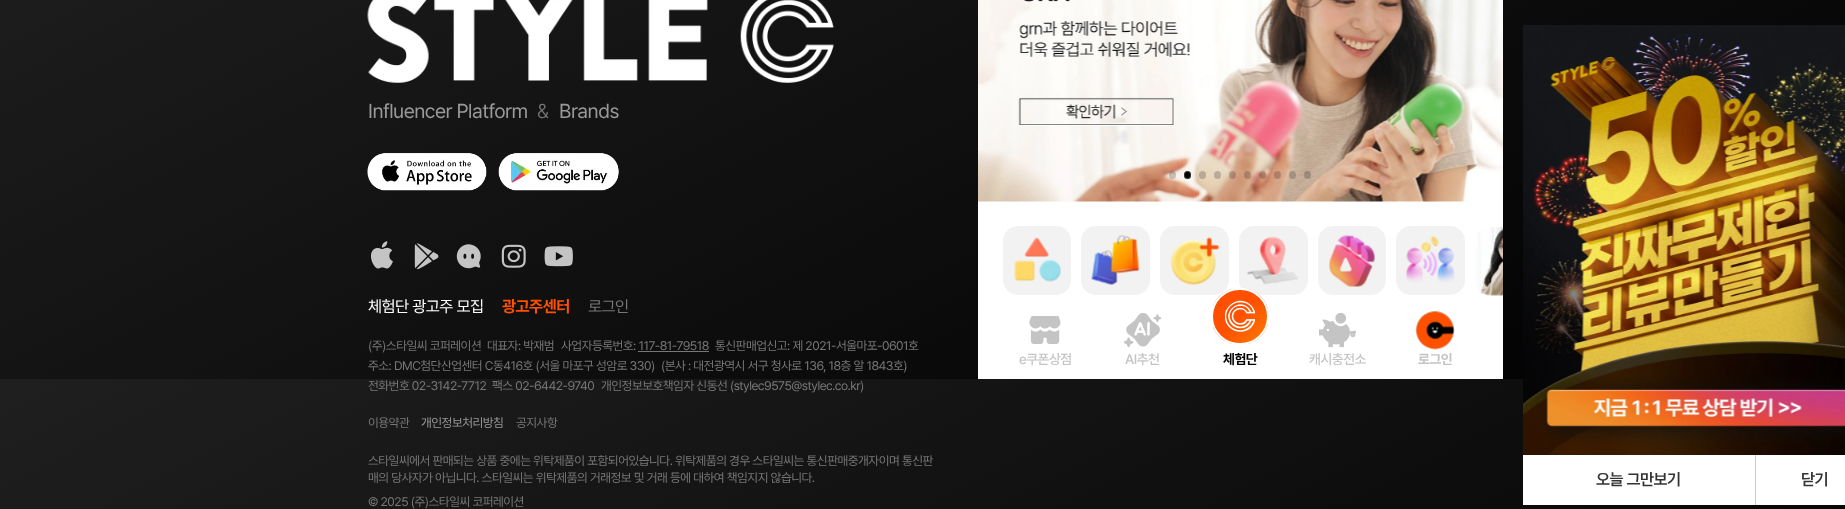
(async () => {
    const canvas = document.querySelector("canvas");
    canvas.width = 1845;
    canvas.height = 509;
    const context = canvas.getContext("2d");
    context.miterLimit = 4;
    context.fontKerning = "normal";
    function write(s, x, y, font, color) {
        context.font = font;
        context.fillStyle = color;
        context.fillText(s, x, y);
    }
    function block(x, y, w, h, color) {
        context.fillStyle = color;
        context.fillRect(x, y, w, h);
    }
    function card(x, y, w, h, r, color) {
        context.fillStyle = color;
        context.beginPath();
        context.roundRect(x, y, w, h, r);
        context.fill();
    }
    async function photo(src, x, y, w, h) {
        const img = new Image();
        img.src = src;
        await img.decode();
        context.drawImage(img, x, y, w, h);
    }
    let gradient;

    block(0, 0, 1845, 509, "rgb(255, 255, 255)");
    gradient = context.createLinearGradient(1216, 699, 629, -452);
    gradient.addColorStop(0, "rgb(0, 0, 0)");
    gradient.addColorStop(1, "rgb(31, 31, 31)");
    context.fillStyle = gradient;
    context.fillRect(0, 0, 1845, 379);
    gradient = context.createLinearGradient(1216, 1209, 629, 58);
    gradient.addColorStop(0, "rgb(0, 0, 0)");
    gradient.addColorStop(1, "rgb(31, 31, 31)");
    context.fillStyle = gradient;
    context.fillRect(0, 379, 1845, 130);
    await photo("media/1.png", 367, 0, 467, 83);
    context.letterSpacing = "-0.5px";
    write("Influencer Platform", 368, 118, "20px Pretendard", "rgb(153, 153, 153)");
    write("&", 537, 118, "300 20px Pretendard", "rgb(119, 119, 119)");
    write("Brands", 559, 118, "20px Pretendard", "rgb(153, 153, 153)");
    await photo("media/2.png", 367, 153, 120, 38);
    await photo("media/3.png", 498, 153, 121, 38);
    await photo("media/4.png", 370, 241, 23, 28);
    await photo("media/5.png", 414, 243, 25, 27);
    await photo("media/6.png", 456, 244, 25, 25);
    await photo("media/7.png", 501, 244, 25, 24);
    await photo("media/8.png", 544, 246, 29, 21);
    write("체험단 광고주 모집", 368, 312, "16.25px Pretendard", "rgb(255, 255, 255)");
    write("광고주센터", 502, 312, "bold 16.25px Pretendard", "rgb(254, 80, 0)");
    write("로그인", 588, 312, "16.25px Pretendard", "rgb(119, 119, 119)");
    write("(주)스타일씨 코퍼레이션", 368, 350, "12.5px Pretendard", "rgb(119, 119, 119)");
    write("대표자: 박재범", 487, 350, "12.5px Pretendard", "rgb(119, 119, 119)");
    write("사업자등록번호: 117-81-79518", 561, 350, "12.5px Pretendard", "rgb(119, 119, 119)");
    block(638, 351, 71, 1, "rgb(119, 119, 119)");
    write("통신판매업신고: 제 2021-서울마포-0601호", 715, 350, "12.5px Pretendard", "rgb(119, 119, 119)");
    write("주소: DMC첨단산업센터 C동416호 (서울 마포구 성암로 330)", 368, 370, "12.5px Pretendard", "rgb(119, 119, 119)");
    write("(본사 : 대전광역시 서구 청사로 136, 18층 알 1843호)", 661, 370, "12.5px Pretendard", "rgb(119, 119, 119)");
    write("전화번호 02-3142-7712", 368, 390, "12.5px Pretendard", "rgb(119, 119, 119)");
    write("팩스 02-6442-9740", 492, 390, "12.5px Pretendard", "rgb(119, 119, 119)");
    write("개인정보보호책임자 신동선 (stylec9575@stylec.co.kr)", 601, 390, "12.5px Pretendard", "rgb(119, 119, 119)");
    write("이용약관", 368, 427, "12.5px Pretendard", "rgb(119, 119, 119)");
    write("개인정보처리방침", 421, 427, "12.5px Pretendard", "rgb(153, 153, 153)");
    write("공지사항", 516, 427, "12.5px Pretendard", "rgb(119, 119, 119)");
    write("스타일씨에서 판매되는 상품 중에는 위탁제품이 포함되어있습니다. 위탁제품의 경우 스타일씨는 통신판매중개자이며 통신판", 368, 465, "12.5px Pretendard", "rgb(119, 119, 119)");
    write("매의 당사자가 아닙니다. 스타일씨는 위탁제품의 거래정보 및 거래 등에 대하여 책임지지 않습니다.", 368, 482, "12.5px Pretendard", "rgb(119, 119, 119)");
    write("© 2025 (주)스타일씨 코퍼레이션", 368, 506, "12.5px Pretendard", "rgb(119, 119, 119)");
    block(978, 201, 525, 178, "rgb(255, 255, 255)");
    await photo("media/9.png", 978, 0, 525, 202);
    card(1169, 171, 7, 8, 3.5, "rgba(0, 0, 0, 0.2)");
    context.strokeStyle = "rgba(255, 255, 255, 0.04)";
    context.strokeRect(1169.5, 171.5, 6, 7);
    card(1184, 171, 7, 8, 3.5, "rgb(0, 0, 0)");
    context.beginPath();
    context.roundRect(1184.5, 171.5, 6, 7, 3);
    context.strokeStyle = "rgba(255, 255, 255, 0.2)";
    context.stroke();
    card(1199, 171, 7, 8, 3.5, "rgba(0, 0, 0, 0.2)");
    context.strokeStyle = "rgba(255, 255, 255, 0.04)";
    context.strokeRect(1199.5, 171.5, 6, 7);
    card(1214, 171, 7, 8, 3.5, "rgba(0, 0, 0, 0.2)");
    context.strokeRect(1214.5, 171.5, 6, 7);
    card(1229, 171, 7, 8, 3.5, "rgba(0, 0, 0, 0.2)");
    context.strokeRect(1229.5, 171.5, 6, 7);
    card(1244, 171, 7, 8, 3.5, "rgba(0, 0, 0, 0.2)");
    context.strokeRect(1244.5, 171.5, 6, 7);
    card(1259, 171, 7, 8, 3.5, "rgba(0, 0, 0, 0.2)");
    context.strokeRect(1259.5, 171.5, 6, 7);
    card(1274, 171, 7, 8, 3.5, "rgba(0, 0, 0, 0.2)");
    context.strokeRect(1274.5, 171.5, 6, 7);
    card(1289, 171, 7, 8, 3.5, "rgba(0, 0, 0, 0.2)");
    context.strokeRect(1289.5, 171.5, 6, 7);
    card(1304, 171, 7, 8, 3.5, "rgba(0, 0, 0, 0.2)");
    context.strokeRect(1304.5, 171.5, 6, 7);
    card(1003, 226, 68, 69, 15, "rgb(242, 242, 242)");
    await photo("media/10.png", 1014, 237, 47, 45);
    card(1081, 226, 69, 69, 15, "rgb(242, 242, 242)");
    await photo("media/11.png", 1091, 235, 49, 50);
    card(1160, 226, 69, 69, 15, "rgb(242, 242, 242)");
    await photo("media/12.png", 1170, 237, 50, 48);
    card(1239, 226, 69, 69, 15, "rgb(242, 242, 242)");
    await photo("media/13.png", 1247, 236, 51, 49);
    card(1318, 226, 68, 69, 15, "rgb(242, 242, 242)");
    await photo("media/14.png", 1328, 235, 47, 52);
    card(1396, 226, 69, 69, 15, "rgb(242, 242, 242)");
    await photo("media/15.png", 1406, 235, 49, 48);
    await photo("media/16.png", 1475, 227, 28, 69);
    await photo("media/17.png", 1029, 316, 32, 28);
    write("e쿠폰상점", 1019, 364, "500 13.75px Pretendard", "rgb(196, 196, 196)");
    await photo("media/18.png", 1124, 313, 37, 35);
    write("AI추천", 1125, 364, "500 13.75px Pretendard", "rgb(196, 196, 196)");
    context.save();
    context.beginPath();
    context.roundRect(1211, 288, 58, 57, 28.5);
    context.clip();
    gradient = context.createLinearGradient(1213, 289, 1267, 343);
    gradient.addColorStop(0.5, "rgb(254, 80, 0)");
    gradient.addColorStop(1, "rgb(253, 123, 1)");
    context.fillStyle = gradient;
    context.fillRect(1213, 289, 55, 55);
    context.restore();
    context.beginPath();
    context.roundRect(1212, 289, 56, 55, 27.5);
    context.strokeStyle = "rgb(255, 255, 255)";
    context.lineWidth = 2;
    context.stroke();
    await photo("media/19.png", 1225, 300, 30, 32);
    write("체험단", 1223, 364, "bold 13.75px Pretendard", "rgb(0, 0, 0)");
    await photo("media/20.png", 1319, 312, 37, 36);
    write("캐시충전소", 1309, 364, "500 13.75px Pretendard", "rgb(196, 196, 196)");
    context.fillStyle = "rgb(221, 221, 221)";
    context.beginPath();
    context.arc(1435, 330, 19, 0, Math.PI * 2);
    context.fill();
    await photo("media/21.png", 1415, 311, 40, 39);
    write("로그인", 1418, 364, "bold 13.75px Pretendard", "rgb(196, 196, 196)");
    await photo("media/22.png", 1523, 25, 322, 430);
    block(1523, 455, 232, 50, "rgb(255, 255, 255)");
    block(1755, 455, 1, 50, "rgb(204, 204, 204)");
    write("오늘 그만보기", 1596, 485, "600 16.25px Pretendard", "rgb(51, 51, 51)");
    block(1756, 455, 89, 50, "rgb(255, 255, 255)");
    write("닫기", 1801, 485, "600 16.25px Pretendard", "rgb(51, 51, 51)");
})();
